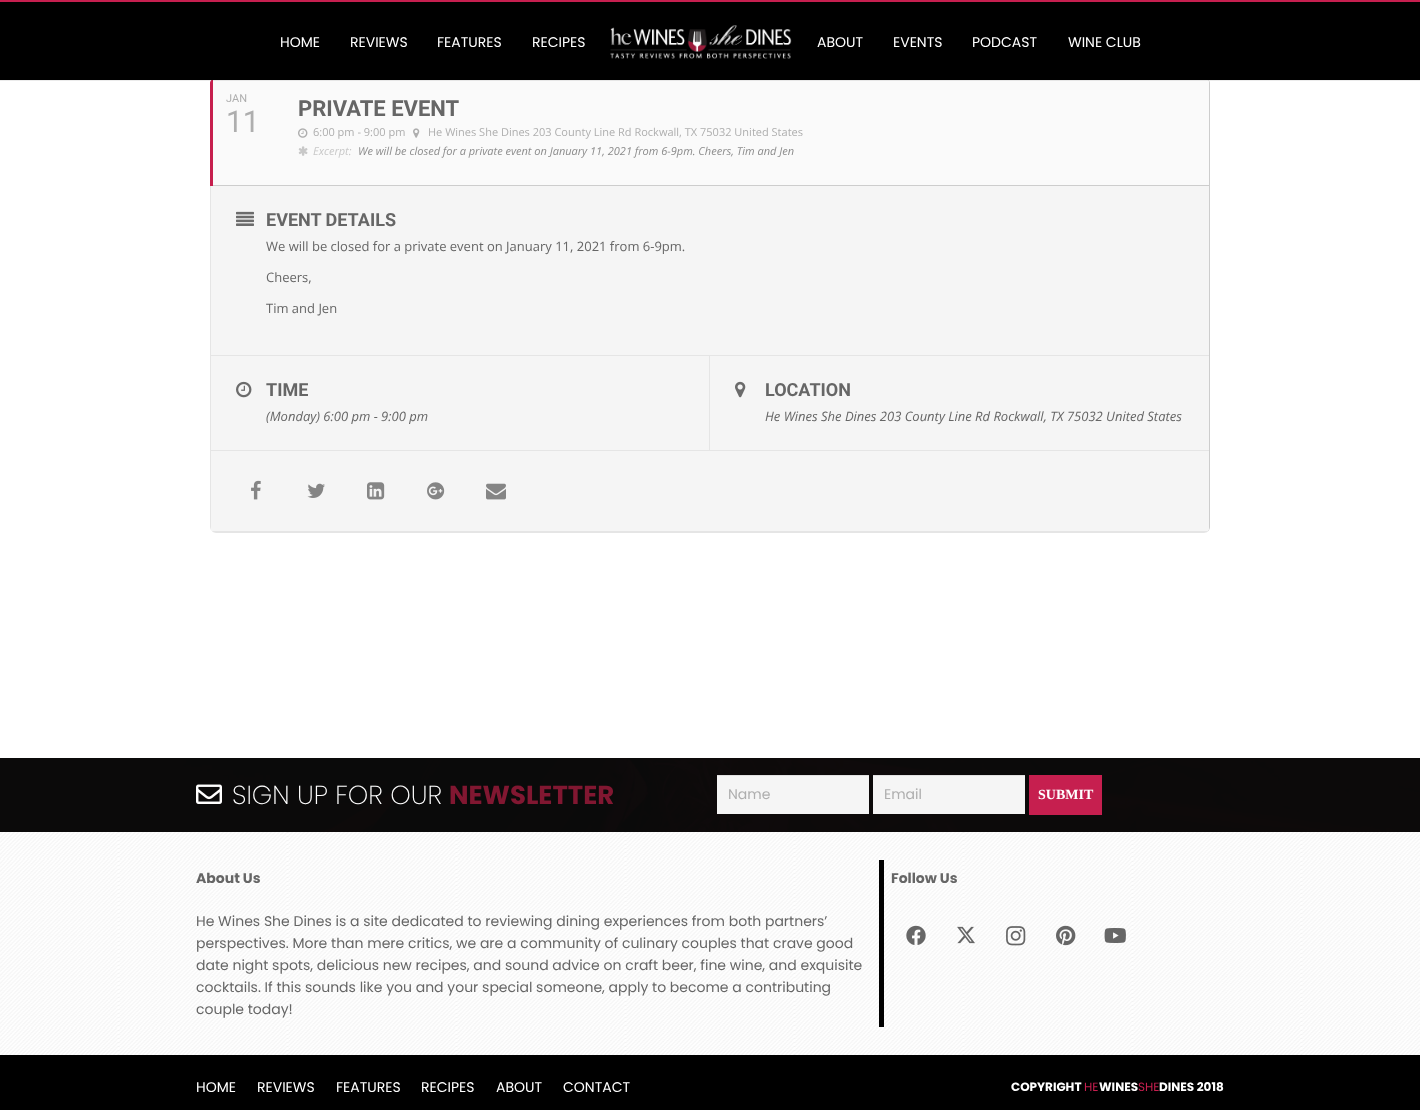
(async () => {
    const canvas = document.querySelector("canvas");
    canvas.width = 1420;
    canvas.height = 1110;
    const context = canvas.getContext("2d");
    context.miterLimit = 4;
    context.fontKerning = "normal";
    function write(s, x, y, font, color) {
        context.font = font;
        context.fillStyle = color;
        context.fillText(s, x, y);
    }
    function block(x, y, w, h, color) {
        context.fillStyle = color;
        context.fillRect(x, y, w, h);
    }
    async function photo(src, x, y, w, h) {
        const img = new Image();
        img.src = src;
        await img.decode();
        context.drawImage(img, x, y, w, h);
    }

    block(0, 0, 1420, 1110, "rgb(255, 255, 255)");
    context.fillStyle = "rgb(205, 205, 205)";
    context.beginPath();
    context.moveTo(1208, 79);
    context.bezierCurveTo(1208, 80, 1209, 82, 1209, 83);
    context.lineTo(1209, 527);
    context.bezierCurveTo(1209, 530, 1207, 533, 1204, 533);
    context.bezierCurveTo(1207, 533, 1210, 530, 1210, 527);
    context.lineTo(1210, 83);
    context.bezierCurveTo(1210, 82, 1209, 80, 1208, 79);
    context.closePath();
    context.fill();
    context.fillStyle = "rgb(250, 250, 250)";
    context.beginPath();
    context.moveTo(216, 78);
    context.bezierCurveTo(213, 78, 210, 80, 210, 83);
    context.lineTo(210, 186);
    context.lineTo(1209, 186);
    context.lineTo(1209, 83);
    context.bezierCurveTo(1209, 80, 1207, 78, 1204, 78);
    context.closePath();
    context.fill();
    context.fillStyle = "rgb(198, 31, 78)";
    context.beginPath();
    context.moveTo(213, 79);
    context.bezierCurveTo(211, 80, 210, 81, 210, 83);
    context.lineTo(210, 186);
    context.lineTo(213, 186);
    context.closePath();
    context.fill();
    block(0, 80, 1420, 1, "rgba(0, 0, 0, 0.08)");
    block(0, 2, 1420, 78, "rgb(0, 0, 0)");
    block(0, 0, 1420, 2, "rgb(198, 31, 79)");
    write("HOME", 280, 47, "14px Poppins", "rgb(255, 255, 255)");
    write("REVIEWS", 350, 47, "14px Poppins", "rgb(255, 255, 255)");
    write("FEATURES", 437, 47, "14px Poppins", "rgb(255, 255, 255)");
    write("RECIPES", 532, 47, "14px Poppins", "rgb(255, 255, 255)");
    await photo("media/1.png", 610, 25, 182, 34);
    write("ABOUT", 817, 47, "14px Poppins", "rgb(255, 255, 255)");
    write("EVENTS", 893, 47, "14px Poppins", "rgb(255, 255, 255)");
    write("PODCAST", 972, 47, "14px Poppins", "rgb(255, 255, 255)");
    write("WINE CLUB", 1068, 47, "14px Poppins", "rgb(255, 255, 255)");
    write("JAN", 226, 102, "11px Roboto", "rgb(174, 174, 174)");
    write("11", 226, 132, "30px Roboto", "rgb(174, 174, 174)");
    write("PRIVATE EVENT", 298, 116, "bold 22px Roboto", "rgb(102, 102, 102)");
    await photo("media/2.png", 298, 128, 10, 10);
    write("6:00 pm - 9:00 pm", 313, 136, "11px Open Sans", "rgb(174, 174, 174)");
    await photo("media/3.png", 413, 128, 7, 10);
    write("He Wines She Dines 203 County Line Rd Rockwall, TX 75032 United States", 428, 136, "11px Open Sans", "rgb(174, 174, 174)");
    await photo("media/4.png", 298, 146, 10, 10);
    write("Excerpt:", 313, 155, "italic 11px Open Sans", "rgb(200, 200, 200)");
    write("We will be closed for a private event on January 11, 2021 from 6-9pm. Cheers, Tim and Jen", 358, 155, "italic 11px Open Sans", "rgb(140, 140, 140)");
    block(213, 185, 996, 1, "rgb(205, 205, 205)");
    context.fillStyle = "rgb(245, 245, 245)";
    context.beginPath();
    context.moveTo(210, 186);
    context.lineTo(210, 527);
    context.bezierCurveTo(210, 530, 213, 533, 216, 533);
    context.lineTo(1204, 533);
    context.bezierCurveTo(1207, 533, 1209, 530, 1209, 527);
    context.lineTo(1209, 186);
    context.closePath();
    context.fill();
    context.fillStyle = "rgb(229, 229, 229)";
    context.beginPath();
    context.moveTo(216, 533);
    context.lineTo(1204, 533);
    context.lineTo(1207, 532);
    context.lineTo(213, 532);
    context.closePath();
    context.fill();
    context.beginPath();
    context.moveTo(210, 186);
    context.lineTo(210, 527);
    context.lineTo(211, 530);
    context.lineTo(211, 186);
    context.closePath();
    context.fill();
    block(211, 355, 998, 1, "rgb(229, 229, 229)");
    await photo("media/5.png", 236, 211, 18, 15);
    write("EVENT DETAILS", 266, 226, "bold 18px Roboto", "rgb(102, 102, 102)");
    write("We will be closed for a private event on January 11, 2021 from 6-9pm.", 266, 251, "13px Open Sans", "rgb(102, 102, 102)");
    write("Cheers,", 266, 282, "13px Open Sans", "rgb(102, 102, 102)");
    write("Tim and Jen", 266, 313, "13px Open Sans", "rgb(102, 102, 102)");
    block(211, 450, 998, 1, "rgb(229, 229, 229)");
    block(709, 356, 1, 94, "rgb(229, 229, 229)");
    await photo("media/6.png", 236, 381, 16, 17);
    write("TIME", 266, 396, "bold 18px Roboto", "rgb(102, 102, 102)");
    write("(Monday) 6:00 pm - 9:00 pm", 266, 421, "italic 13px Open Sans", "rgb(102, 102, 102)");
    await photo("media/7.png", 735, 381, 11, 17);
    write("LOCATION", 765, 396, "bold 18px Roboto", "rgb(102, 102, 102)");
    write("He Wines She Dines 203 County Line Rd Rockwall, TX 75032 United States", 765, 421, "italic 13px Open Sans", "rgb(102, 102, 102)");
    context.fillStyle = "rgb(245, 245, 245)";
    context.beginPath();
    context.moveTo(211, 451);
    context.lineTo(1209, 451);
    context.lineTo(1209, 529);
    context.lineTo(1207, 532);
    context.lineTo(213, 532);
    context.lineTo(211, 530);
    context.closePath();
    context.fill();
    context.fillStyle = "rgb(229, 229, 229)";
    context.beginPath();
    context.moveTo(213, 532);
    context.lineTo(212, 531);
    context.lineTo(1208, 531);
    context.lineTo(1207, 532);
    context.closePath();
    context.fill();
    await photo("media/8.png", 251, 480, 10, 20);
    await photo("media/9.png", 307, 483, 18, 15);
    await photo("media/10.png", 367, 482, 18, 18);
    await photo("media/11.png", 427, 482, 18, 18);
    await photo("media/12.png", 486, 483, 20, 17);
    await photo("media/13.png", 0, 758, 1420, 74);
    await photo("media/14.png", 196, 784, 26, 20);
    write("SIGN UP FOR OUR", 232, 804, "200 26px Poppins", "rgb(255, 255, 255)");
    write("NEWSLETTER", 449, 804, "bold 26px Poppins", "rgb(129, 23, 49)");
    block(717, 776, 152, 38, "rgb(245, 245, 245)");
    block(717, 775, 152, 1, "rgb(225, 225, 225)");
    write("Name", 728, 799, "14px Poppins", "rgb(174, 174, 174)");
    block(873, 776, 152, 38, "rgb(245, 245, 245)");
    block(873, 775, 152, 1, "rgb(225, 225, 225)");
    write("Email", 884, 799, "14px Poppins", "rgb(174, 174, 174)");
    block(1029, 775, 73, 40, "rgb(198, 31, 79)");
    write("SUBMIT", 1038, 799, "bold 14px Liberation Serif", "rgb(255, 255, 255)");
    await photo("media/15.png", 0, 832, 1420, 223);
    block(879, 860, 5, 167, "rgb(0, 0, 0)");
    write("About Us", 196, 883, "bold 14px Poppins", "rgb(102, 102, 102)");
    write("He Wines She Dines is a site dedicated to reviewing dining experiences from both partners’", 196, 926, "14px Poppins", "rgb(102, 102, 102)");
    write("perspectives. More than mere critics, we are a community of culinary couples that crave good", 196, 948, "14px Poppins", "rgb(102, 102, 102)");
    write("date night spots, delicious new recipes, and sound advice on craft beer, fine wine, and exquisite", 196, 970, "14px Poppins", "rgb(102, 102, 102)");
    write("cocktails. If this sounds like you and your special someone, apply to become a contributing", 196, 992, "14px Poppins", "rgb(102, 102, 102)");
    write("couple today!", 196, 1014, "14px Poppins", "rgb(102, 102, 102)");
    write("Follow Us", 891, 883, "bold 14px Poppins", "rgb(102, 102, 102)");
    await photo("media/16.png", 906, 925, 20, 20);
    await photo("media/17.png", 957, 926, 18, 18);
    await photo("media/18.png", 1006, 926, 20, 20);
    await photo("media/19.png", 1056, 925, 20, 21);
    await photo("media/20.png", 1104, 928, 22, 15);
    block(0, 1055, 1420, 55, "rgb(0, 0, 0)");
    write("HOME", 196, 1092, "14px Poppins", "rgb(255, 255, 255)");
    write("REVIEWS", 257, 1092, "14px Poppins", "rgb(255, 255, 255)");
    write("FEATURES", 336, 1092, "14px Poppins", "rgb(255, 255, 255)");
    write("RECIPES", 421, 1092, "14px Poppins", "rgb(255, 255, 255)");
    write("ABOUT", 496, 1092, "14px Poppins", "rgb(255, 255, 255)");
    write("CONTACT", 563, 1092, "14px Poppins", "rgb(255, 255, 255)");
    write("COPYRIGHT", 1011, 1091, "bold 12px Poppins", "rgb(255, 255, 255)");
    write("HE", 1084, 1091, "12px Poppins", "rgb(198, 31, 79)");
    write("WINES", 1099, 1091, "bold 12px Poppins", "rgb(255, 255, 255)");
    write("SHE", 1138, 1091, "12px Poppins", "rgb(198, 31, 79)");
    write("DINES 2018", 1159, 1091, "bold 12px Poppins", "rgb(255, 255, 255)");
})();
